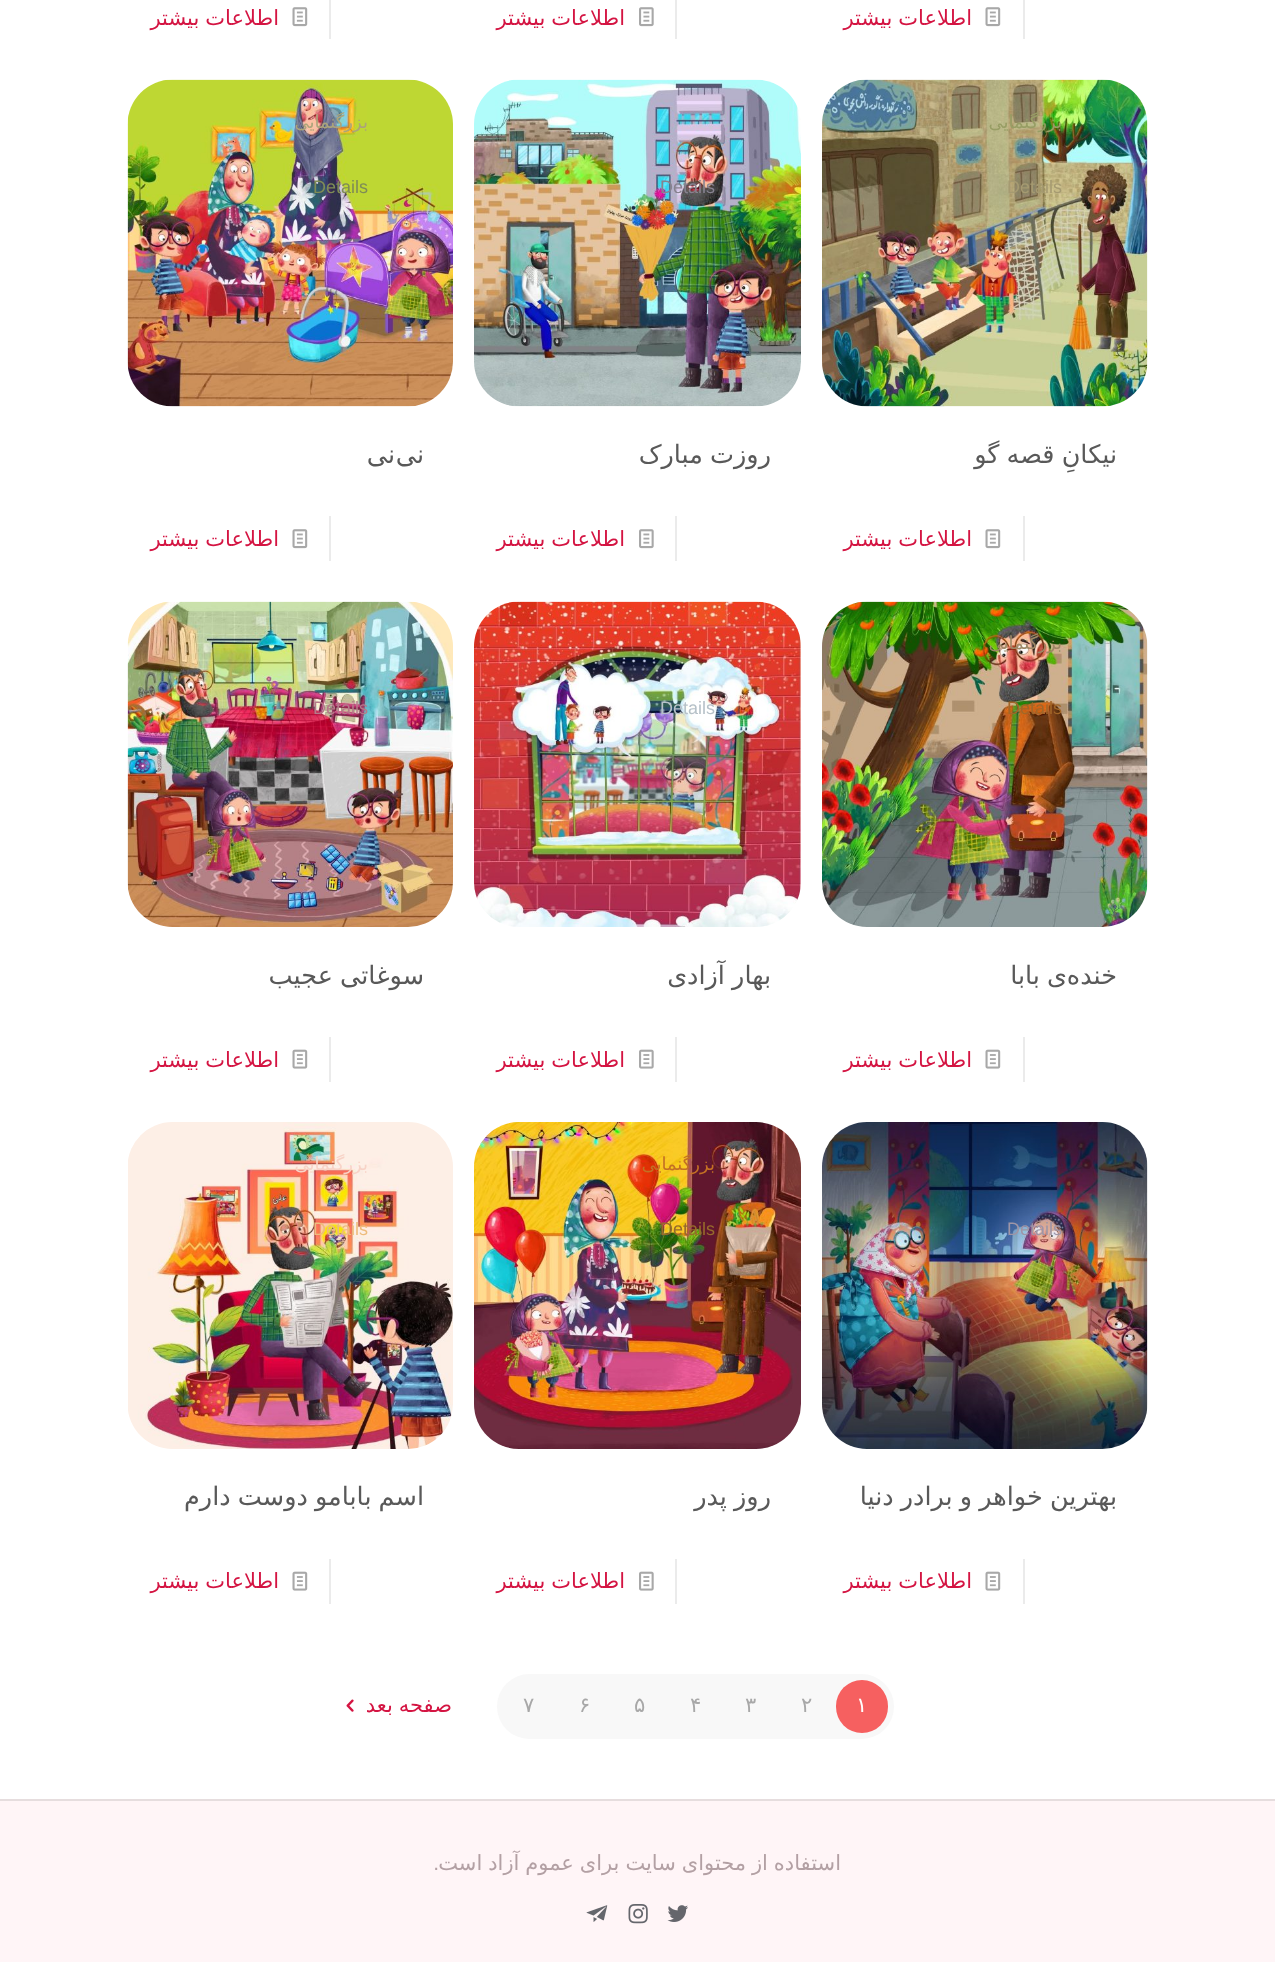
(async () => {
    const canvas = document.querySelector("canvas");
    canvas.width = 1275;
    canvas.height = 1962;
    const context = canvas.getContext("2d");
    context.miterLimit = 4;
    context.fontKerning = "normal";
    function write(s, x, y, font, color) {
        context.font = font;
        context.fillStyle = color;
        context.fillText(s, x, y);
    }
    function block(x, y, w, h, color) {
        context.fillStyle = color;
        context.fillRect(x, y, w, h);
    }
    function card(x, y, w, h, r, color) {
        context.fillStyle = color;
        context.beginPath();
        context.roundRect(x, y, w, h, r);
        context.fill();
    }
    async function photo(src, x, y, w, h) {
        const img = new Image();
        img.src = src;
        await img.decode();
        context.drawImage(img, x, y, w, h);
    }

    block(0, 0, 1275, 1962, "rgb(255, 255, 255)");
    block(1023, 0, 2, 39, "rgb(235, 235, 235)");
    await photo("media/1.png", 985, 7, 16, 20);
    context.wordSpacing = "-0.75px";
    context.direction = "rtl";
    write("اطلاعات بیشتر", 972, 25, "21px DejaVu Sans", "rgb(212, 20, 66)");
    block(675, 0, 2, 39, "rgb(235, 235, 235)");
    await photo("media/2.png", 639, 7, 15, 20);
    write("اطلاعات بیشتر", 625, 25, "21px DejaVu Sans", "rgb(212, 20, 66)");
    block(329, 0, 2, 39, "rgb(235, 235, 235)");
    await photo("media/1.png", 292, 7, 16, 20);
    write("اطلاعات بیشتر", 279, 25, "21px DejaVu Sans", "rgb(212, 20, 66)");
    await photo("media/3.png", 822, 79, 326, 328);
    context.wordSpacing = "0px";
    write("بزرگنمایی", 1062, 128, "18px DejaVu Sans", "rgb(151, 157, 100)");
    context.direction = "ltr";
    write("Details", 1007, 193, "18px Liberation Sans", "rgb(165, 154, 113)");
    context.wordSpacing = "-1px";
    context.direction = "rtl";
    write("نیکانِ قصه گو", 1117, 463, "25.5px DejaVu Sans", "rgb(89, 89, 89)");
    block(1023, 516, 2, 45, "rgb(235, 235, 235)");
    await photo("media/1.png", 985, 529, 16, 20);
    context.wordSpacing = "-0.75px";
    write("اطلاعات بیشتر", 972, 546, "21px DejaVu Sans", "rgb(212, 20, 66)");
    await photo("media/4.png", 474, 79, 327, 328);
    context.wordSpacing = "0px";
    context.direction = "ltr";
    write("Details", 660, 193, "18px Liberation Sans", "rgb(135, 130, 143)");
    context.wordSpacing = "-1px";
    context.direction = "rtl";
    write("روزت مبارک", 771, 463, "25.5px DejaVu Sans", "rgb(89, 89, 89)");
    block(675, 516, 2, 45, "rgb(235, 235, 235)");
    await photo("media/2.png", 639, 529, 15, 20);
    context.wordSpacing = "-0.75px";
    write("اطلاعات بیشتر", 625, 546, "21px DejaVu Sans", "rgb(212, 20, 66)");
    await photo("media/5.png", 127, 79, 326, 328);
    context.wordSpacing = "0px";
    write("بزرگنمایی", 368, 128, "18px DejaVu Sans", "rgb(172, 164, 123)");
    context.direction = "ltr";
    write("Details", 313, 193, "18px Liberation Sans", "rgb(127, 140, 86)");
    context.direction = "rtl";
    write("نی", 424, 463, "25.5px DejaVu Sans", "rgb(89, 89, 89)");
    write("نی", 395, 463, "25.5px DejaVu Sans", "rgb(89, 89, 89)");
    block(329, 516, 2, 45, "rgb(235, 235, 235)");
    await photo("media/1.png", 292, 529, 16, 20);
    context.wordSpacing = "-0.75px";
    write("اطلاعات بیشتر", 279, 546, "21px DejaVu Sans", "rgb(212, 20, 66)");
    await photo("media/6.png", 822, 601, 326, 326);
    context.wordSpacing = "0px";
    write("بزرگنمایی", 1062, 649, "18px DejaVu Sans", "rgb(159, 136, 102)");
    context.direction = "ltr";
    write("Details", 1007, 714, "18px Liberation Sans", "rgb(162, 102, 40)");
    context.direction = "rtl";
    write("خنده", 1117, 984, "25.5px DejaVu Sans", "rgb(89, 89, 89)");
    context.wordSpacing = "-1px";
    write("ی بابا", 1067, 984, "25.5px DejaVu Sans", "rgb(89, 89, 89)");
    block(1023, 1037, 2, 45, "rgb(235, 235, 235)");
    await photo("media/7.png", 985, 1049, 16, 20);
    context.wordSpacing = "-0.75px";
    write("اطلاعات بیشتر", 972, 1067, "21px DejaVu Sans", "rgb(212, 20, 66)");
    await photo("media/8.png", 474, 601, 327, 326);
    context.wordSpacing = "0px";
    context.direction = "ltr";
    write("Details", 660, 714, "18px Liberation Sans", "rgb(182, 193, 200)");
    context.wordSpacing = "-1px";
    context.direction = "rtl";
    write("بهار آزادی", 771, 984, "25.5px DejaVu Sans", "rgb(89, 89, 89)");
    block(675, 1037, 2, 45, "rgb(235, 235, 235)");
    await photo("media/9.png", 639, 1049, 15, 20);
    context.wordSpacing = "-0.75px";
    write("اطلاعات بیشتر", 625, 1067, "21px DejaVu Sans", "rgb(212, 20, 66)");
    await photo("media/10.png", 127, 601, 326, 326);
    context.wordSpacing = "0px";
    context.direction = "ltr";
    write("Details", 313, 714, "18px Liberation Sans", "rgb(181, 122, 138)");
    context.wordSpacing = "-1px";
    context.direction = "rtl";
    write("سوغاتی عجیب", 424, 984, "25.5px DejaVu Sans", "rgb(89, 89, 89)");
    block(329, 1037, 2, 45, "rgb(235, 235, 235)");
    await photo("media/7.png", 292, 1049, 16, 20);
    context.wordSpacing = "-0.75px";
    write("اطلاعات بیشتر", 279, 1067, "21px DejaVu Sans", "rgb(212, 20, 66)");
    await photo("media/11.png", 822, 1122, 326, 327);
    context.wordSpacing = "0px";
    context.direction = "ltr";
    write("Details", 1007, 1235, "18px Liberation Sans", "rgb(159, 149, 166)");
    context.wordSpacing = "-1px";
    context.direction = "rtl";
    write("بهترین خواهر و برادر دنیا", 1117, 1505, "25.5px DejaVu Sans", "rgb(89, 89, 89)");
    block(1023, 1559, 2, 45, "rgb(235, 235, 235)");
    await photo("media/7.png", 985, 1571, 16, 20);
    context.wordSpacing = "-0.75px";
    write("اطلاعات بیشتر", 972, 1588, "21px DejaVu Sans", "rgb(212, 20, 66)");
    await photo("media/12.png", 474, 1122, 327, 327);
    context.wordSpacing = "0px";
    write("بزرگنمایی", 715, 1170, "18px DejaVu Sans", "rgb(195, 112, 36)");
    context.direction = "ltr";
    write("Details", 660, 1235, "18px Liberation Sans", "rgb(151, 106, 43)");
    context.wordSpacing = "-1px";
    context.direction = "rtl";
    write("روز پدر", 771, 1505, "25.5px DejaVu Sans", "rgb(89, 89, 89)");
    block(675, 1559, 2, 45, "rgb(235, 235, 235)");
    await photo("media/9.png", 639, 1571, 15, 20);
    context.wordSpacing = "-0.75px";
    write("اطلاعات بیشتر", 625, 1588, "21px DejaVu Sans", "rgb(212, 20, 66)");
    await photo("media/13.png", 128, 1122, 325, 327);
    context.wordSpacing = "0px";
    write("بزرگنمایی", 368, 1170, "18px DejaVu Sans", "rgb(248, 211, 199)");
    context.direction = "ltr";
    write("Details", 313, 1235, "18px Liberation Sans", "rgb(237, 188, 124)");
    context.wordSpacing = "-1px";
    context.direction = "rtl";
    write("اسم بابامو دوست دارم", 424, 1505, "25.5px DejaVu Sans", "rgb(89, 89, 89)");
    block(329, 1559, 2, 45, "rgb(235, 235, 235)");
    await photo("media/7.png", 292, 1571, 16, 20);
    context.wordSpacing = "-0.75px";
    write("اطلاعات بیشتر", 279, 1588, "21px DejaVu Sans", "rgb(212, 20, 66)");
    card(497, 1674, 397, 65, 32.5, "rgb(248, 248, 248)");
    card(836, 1680, 52, 53, 26, "rgb(246, 96, 96)");
    context.wordSpacing = "0px";
    context.direction = "ltr";
    write("۱", 856, 1712, "21px DejaVu Sans", "rgb(255, 255, 255)");
    write("۲", 801, 1712, "21px DejaVu Sans", "rgb(168, 168, 168)");
    write("۳", 745, 1712, "21px DejaVu Sans", "rgb(168, 168, 168)");
    write("۴", 690, 1712, "21px DejaVu Sans", "rgb(168, 168, 168)");
    write("۵", 634, 1712, "21px DejaVu Sans", "rgb(168, 168, 168)");
    write("۶", 579, 1712, "21px DejaVu Sans", "rgb(168, 168, 168)");
    write("۷", 523, 1712, "21px DejaVu Sans", "rgb(168, 168, 168)");
    context.wordSpacing = "-0.75px";
    context.direction = "rtl";
    write("صفحه بعد", 452, 1712, "21px DejaVu Sans", "rgb(212, 20, 66)");
    await photo("media/14.png", 346, 1699, 8, 13);
    block(0, 1801, 1275, 161, "rgb(255, 245, 247)");
    block(0, 1799, 1275, 2, "rgb(230, 221, 222)");
    write("استفاده از محتوای سایت برای عموم آزاد است", 841, 1870, "21px DejaVu Sans", "rgb(179, 160, 164)");
    context.wordSpacing = "0px";
    write(".", 439, 1870, "21px Liberation Sans", "rgb(179, 160, 164)");
    await photo("media/15.png", 667, 1905, 21, 17);
    await photo("media/16.png", 628, 1904, 20, 20);
    await photo("media/17.png", 586, 1905, 22, 17);
})();
